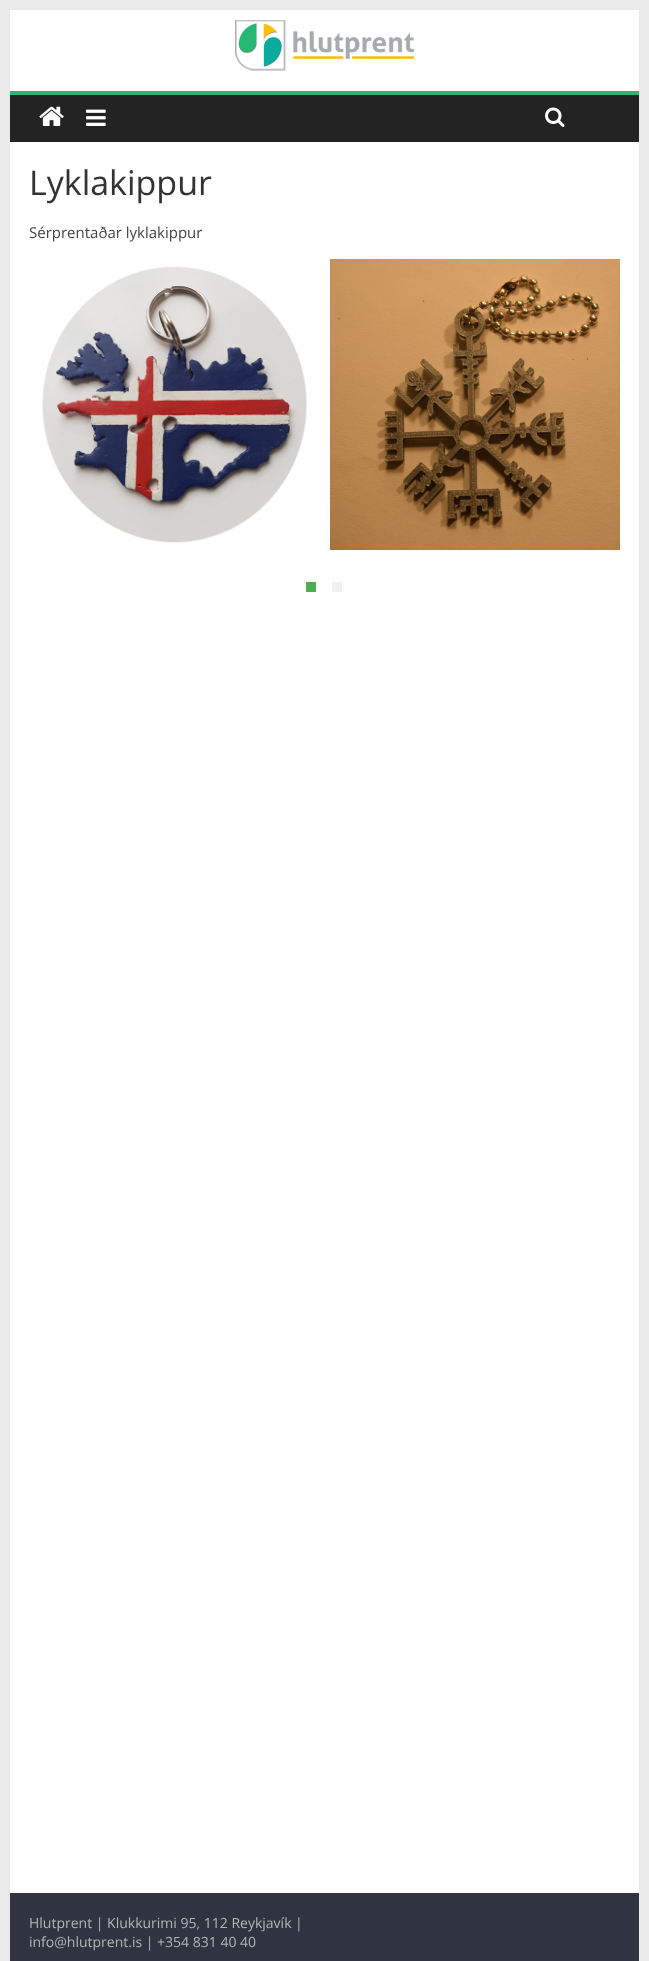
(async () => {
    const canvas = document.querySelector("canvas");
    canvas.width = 649;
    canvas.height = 1961;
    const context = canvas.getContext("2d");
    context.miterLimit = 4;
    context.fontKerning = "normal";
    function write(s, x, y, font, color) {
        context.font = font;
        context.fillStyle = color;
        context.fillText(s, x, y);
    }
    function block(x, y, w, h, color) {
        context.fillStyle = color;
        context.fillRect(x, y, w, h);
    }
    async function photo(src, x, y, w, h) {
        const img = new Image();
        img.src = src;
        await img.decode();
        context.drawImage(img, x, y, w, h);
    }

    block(0, 0, 649, 1961, "rgb(234, 234, 234)");
    block(10, 10, 629, 1883, "rgb(255, 255, 255)");
    await photo("media/1.png", 235, 20, 179, 51);
    block(10, 95, 629, 47, "rgb(35, 35, 35)");
    block(10, 91, 629, 4, "rgb(43, 182, 115)");
    await photo("media/2.png", 39, 106, 25, 20);
    await photo("media/3.png", 86, 109, 20, 17);
    await photo("media/4.png", 545, 107, 20, 20);
    write("Lyklakippur", 29, 195, "34px Open Sans", "rgb(51, 51, 51)");
    write("Sérprentaðar lyklakippur", 29, 238, "15px Open Sans", "rgb(68, 68, 68)");
    await photo("media/5.png", 42, 266, 265, 277);
    await photo("media/6.png", 330, 259, 290, 291);
    block(306, 582, 10, 10, "rgb(76, 175, 80)");
    block(332, 582, 10, 10, "rgb(241, 241, 241)");
    block(10, 1893, 629, 68, "rgb(48, 52, 64)");
    write("Hlutprent | Klukkurimi 95, 112 Reykjavík |", 29, 1928, "14px Open Sans", "rgb(177, 182, 182)");
    write("info@hlutprent.is | +354 831 40 40", 29, 1947, "14px Open Sans", "rgb(177, 182, 182)");
})();
